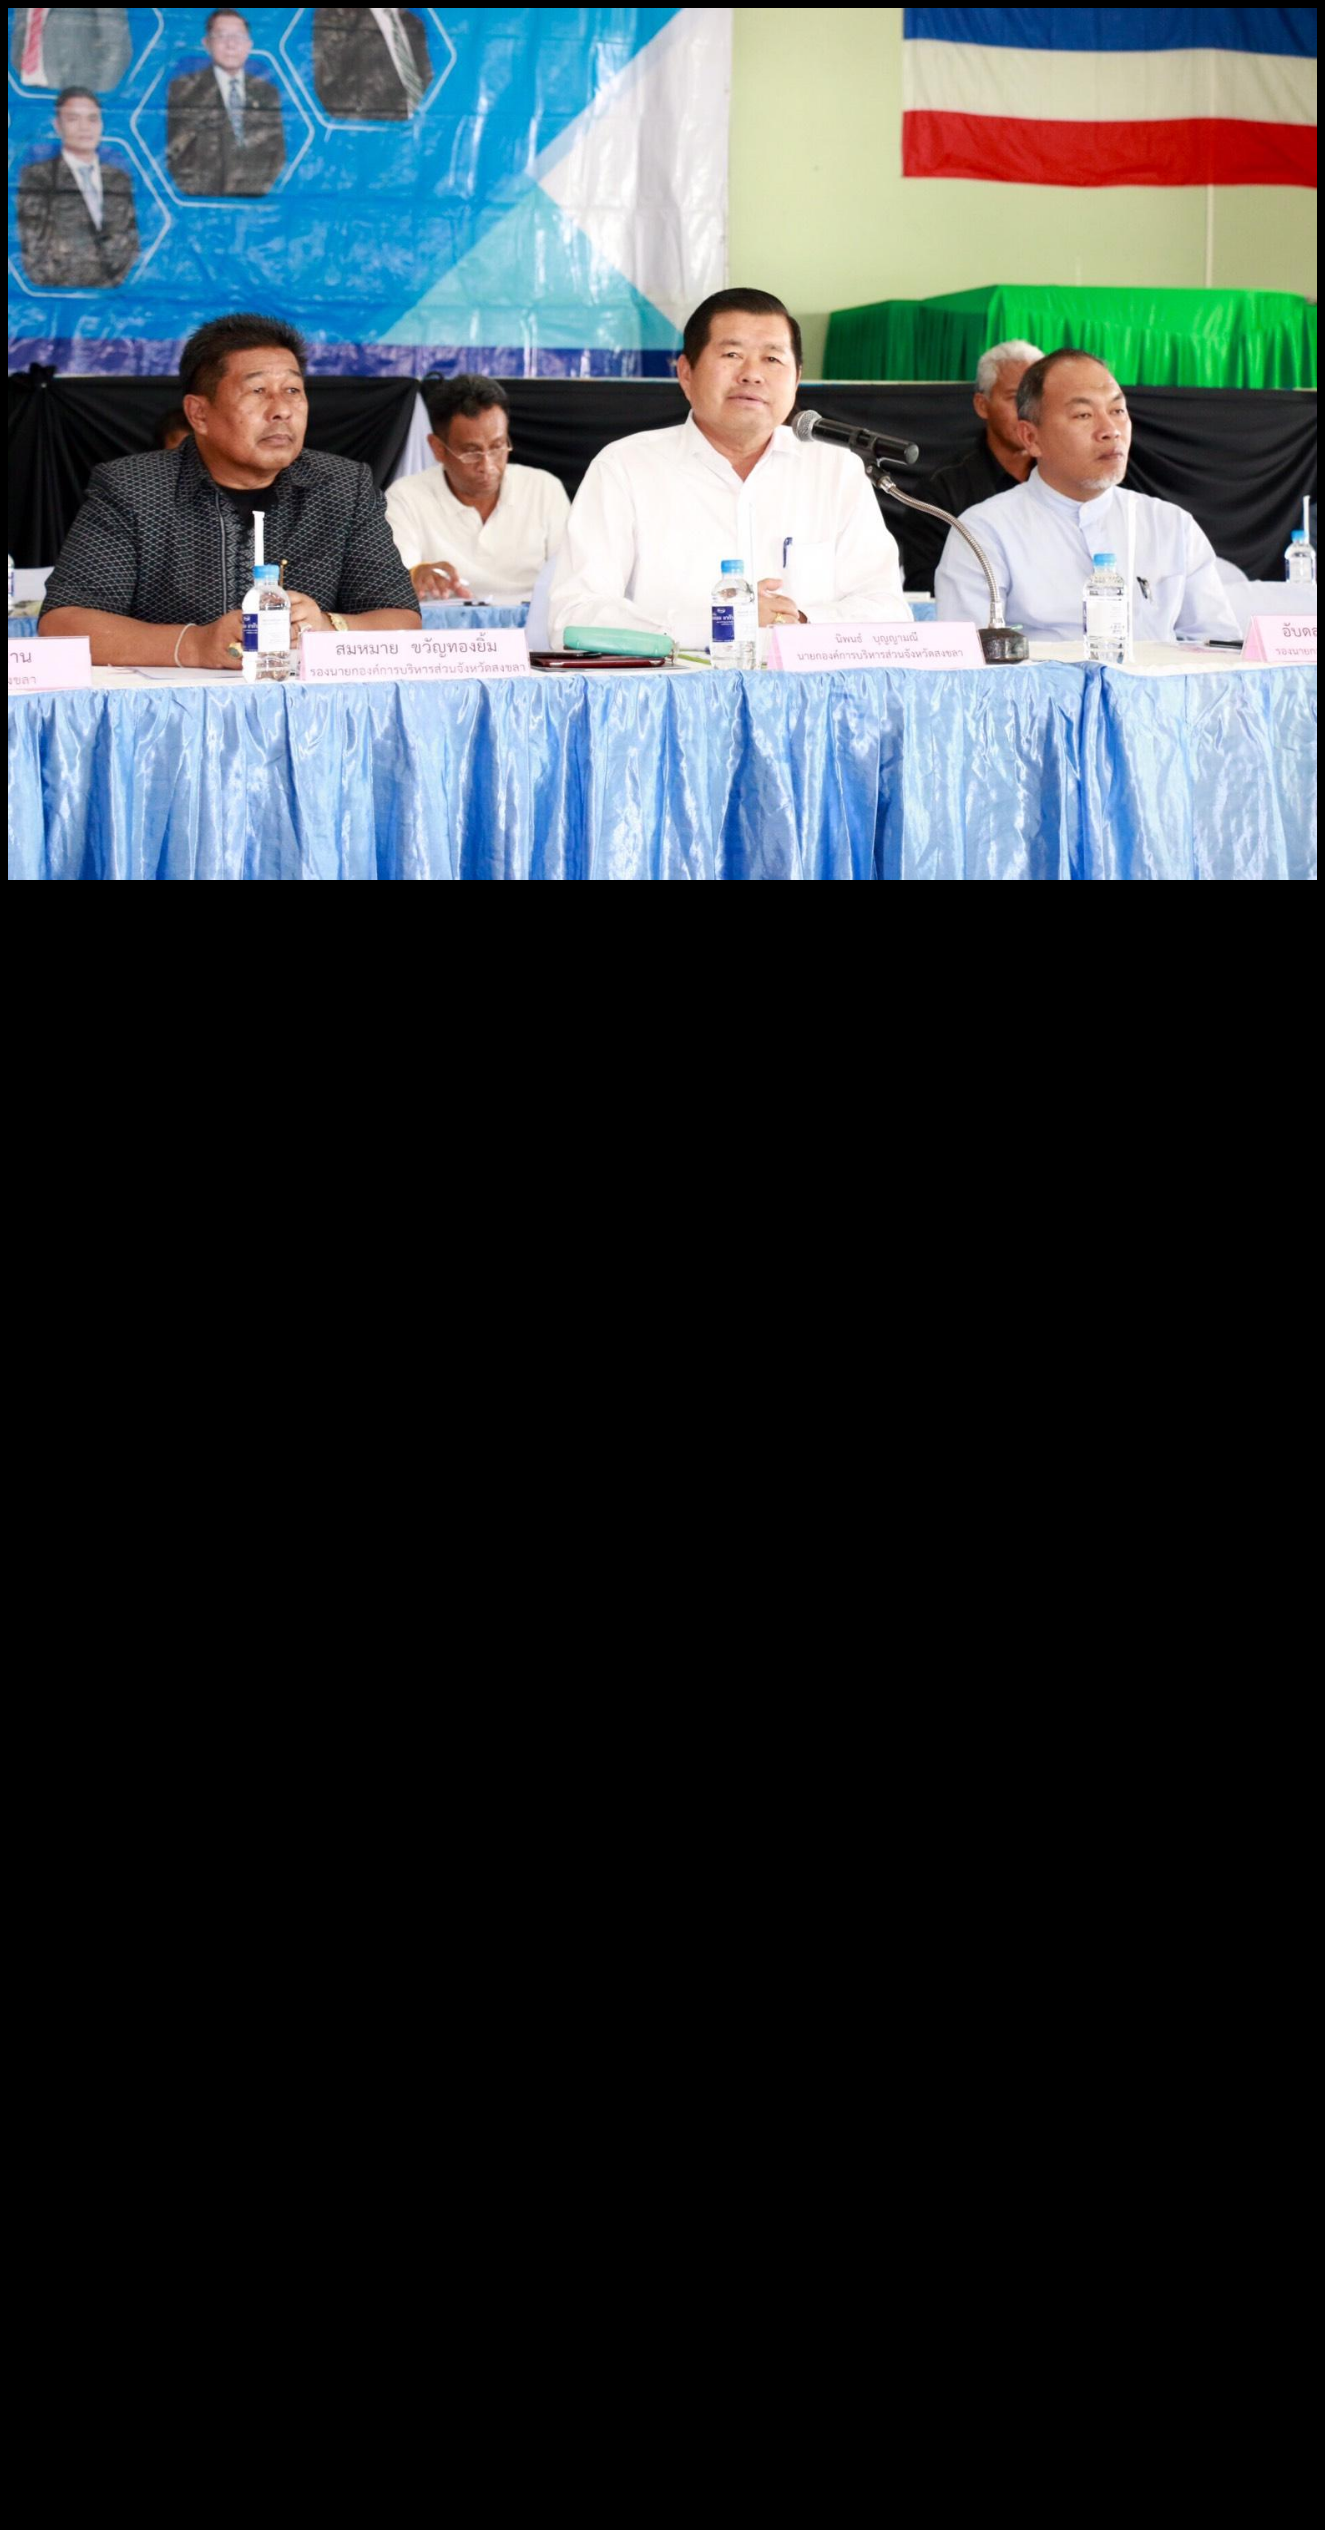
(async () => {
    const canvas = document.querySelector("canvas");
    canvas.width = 1325;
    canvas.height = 2530;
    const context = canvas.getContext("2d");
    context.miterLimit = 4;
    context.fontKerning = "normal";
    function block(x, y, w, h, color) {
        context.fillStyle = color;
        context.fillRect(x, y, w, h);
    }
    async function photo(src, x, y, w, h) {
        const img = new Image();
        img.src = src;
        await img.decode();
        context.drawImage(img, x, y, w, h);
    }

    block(0, 0, 1325, 2530, "rgb(0, 0, 0)");
    await photo("media/1.png", 8, 8, 1309, 872);
})();
